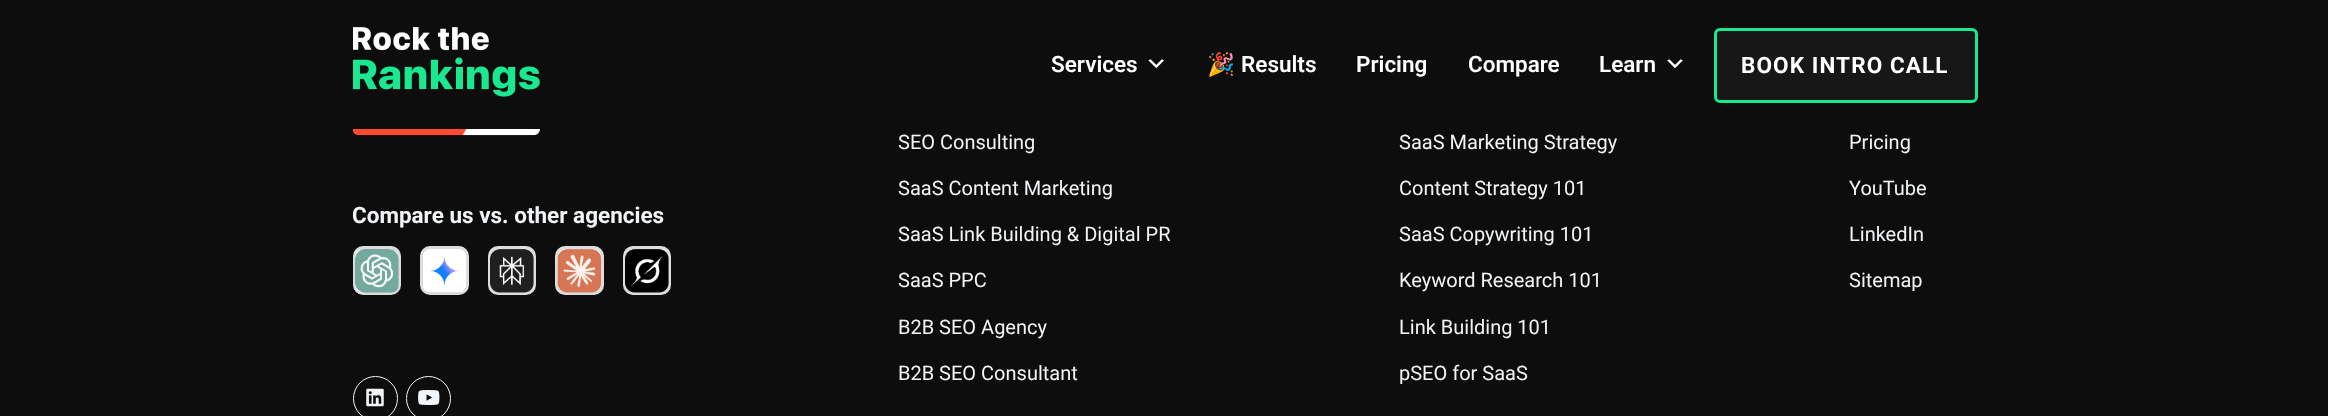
(async () => {
    const canvas = document.querySelector("canvas");
    canvas.width = 2328;
    canvas.height = 416;
    const context = canvas.getContext("2d");
    context.miterLimit = 4;
    context.fontKerning = "normal";
    function write(s, x, y, font, color) {
        context.font = font;
        context.fillStyle = color;
        context.fillText(s, x, y);
    }
    function block(x, y, w, h, color) {
        context.fillStyle = color;
        context.fillRect(x, y, w, h);
    }
    async function photo(src, x, y, w, h) {
        const img = new Image();
        img.src = src;
        await img.decode();
        context.drawImage(img, x, y, w, h);
    }

    block(0, 0, 2328, 416, "rgb(14, 13, 13)");
    await photo("media/1.png", 353, 27, 187, 70);
    write("Services", 1051, 72, "600 22.5px Roboto", "rgb(255, 255, 255)");
    await photo("media/2.png", 1148, 59, 16, 10);
    write("🎉", 1207, 72, "bold 22.5px Noto Color Emoji", "rgb(255, 255, 255)");
    write("Results", 1241, 72, "600 22.5px Roboto", "rgb(255, 255, 255)");
    write("Pricing", 1356, 72, "600 22.5px Roboto", "rgb(255, 255, 255)");
    write("Compare", 1468, 72, "600 22.5px Roboto", "rgb(255, 255, 255)");
    write("Learn", 1599, 72, "600 22.5px Roboto", "rgb(255, 255, 255)");
    await photo("media/3.png", 1667, 59, 16, 10);
    context.fillStyle = "rgb(23, 23, 23)";
    context.beginPath();
    context.roundRect(1715.5, 29.5, 261, 72, 4.5);
    context.fill();
    context.strokeStyle = "rgb(26, 232, 144)";
    context.lineWidth = 3;
    context.stroke();
    context.letterSpacing = "1.1px";
    write("BOOK INTRO CALL", 1741, 73, "bold 22.5px Roboto", "rgb(255, 255, 255)");
    await photo("media/4.png", 352, 129, 188, 7);
    context.letterSpacing = "0px";
    write("Compare us vs. other agencies", 352, 223, "bold 22.5px Roboto", "rgb(242, 245, 247)");
    context.beginPath();
    context.roundRect(354.5, 247.5, 45, 46, 8.5);
    context.strokeStyle = "rgb(221, 221, 221)";
    context.stroke();
    await photo("media/5.png", 355, 249, 44, 44);
    context.fillStyle = "rgb(255, 255, 255)";
    context.beginPath();
    context.roundRect(421.5, 247.5, 46, 46, 8.5);
    context.fill();
    context.stroke();
    await photo("media/6.png", 423, 253, 43, 39);
    context.beginPath();
    context.roundRect(489.5, 247.5, 45, 46, 8.5);
    context.fill();
    context.stroke();
    await photo("media/7.png", 490, 249, 44, 44);
    context.beginPath();
    context.roundRect(556.5, 247.5, 46, 46, 8.5);
    context.fill();
    context.stroke();
    await photo("media/8.png", 557, 249, 45, 44);
    context.beginPath();
    context.roundRect(624.5, 247.5, 45, 46, 8.5);
    context.fill();
    context.stroke();
    await photo("media/9.png", 625, 249, 44, 44);
    context.beginPath();
    context.arc(375.5, 398.5, 22, 0, Math.PI * 2);
    context.strokeStyle = "rgb(242, 245, 247)";
    context.lineWidth = 1;
    context.stroke();
    await photo("media/10.png", 366, 388, 18, 19);
    context.beginPath();
    context.arc(428.5, 398.5, 22, 0, Math.PI * 2);
    context.stroke();
    await photo("media/11.png", 418, 390, 22, 15);
    write("SEO Consulting", 898, 149, "20px Roboto", "rgb(242, 245, 247)");
    write("SaaS Content Marketing", 898, 195, "20px Roboto", "rgb(242, 245, 247)");
    write("SaaS Link Building & Digital PR", 898, 241, "20px Roboto", "rgb(242, 245, 247)");
    write("SaaS PPC", 898, 287, "20px Roboto", "rgb(242, 245, 247)");
    write("B2B SEO Agency", 898, 334, "20px Roboto", "rgb(242, 245, 247)");
    write("B2B SEO Consultant", 898, 380, "20px Roboto", "rgb(242, 245, 247)");
    write("SaaS Marketing Strategy", 1399, 149, "20px Roboto", "rgb(242, 245, 247)");
    write("Content Strategy 101", 1399, 195, "20px Roboto", "rgb(242, 245, 247)");
    write("SaaS Copywriting 101", 1399, 241, "20px Roboto", "rgb(242, 245, 247)");
    write("Keyword Research 101", 1399, 287, "20px Roboto", "rgb(242, 245, 247)");
    write("Link Building 101", 1399, 334, "20px Roboto", "rgb(242, 245, 247)");
    write("pSEO for SaaS", 1399, 380, "20px Roboto", "rgb(242, 245, 247)");
    write("Pricing", 1849, 149, "20px Roboto", "rgb(242, 245, 247)");
    write("YouTube", 1849, 195, "20px Roboto", "rgb(242, 245, 247)");
    write("LinkedIn", 1849, 241, "20px Roboto", "rgb(242, 245, 247)");
    write("Sitemap", 1849, 287, "20px Roboto", "rgb(242, 245, 247)");
})();
